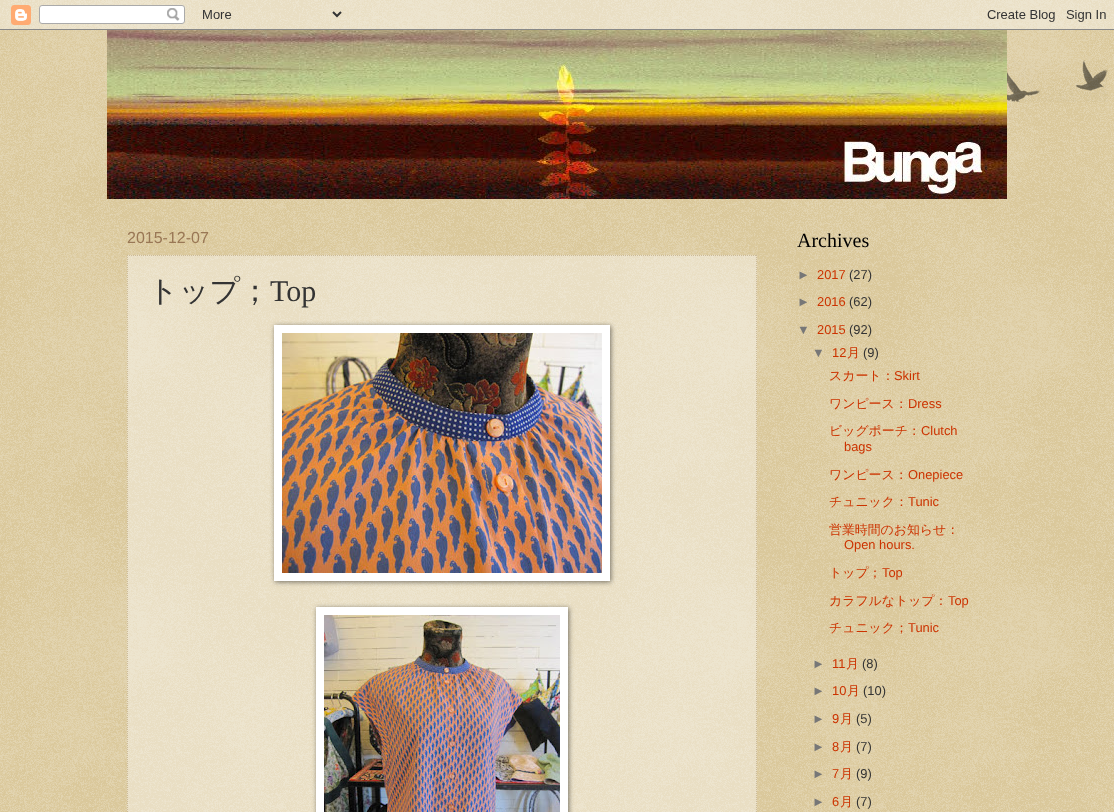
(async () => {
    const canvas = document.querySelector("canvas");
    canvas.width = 1114;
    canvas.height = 812;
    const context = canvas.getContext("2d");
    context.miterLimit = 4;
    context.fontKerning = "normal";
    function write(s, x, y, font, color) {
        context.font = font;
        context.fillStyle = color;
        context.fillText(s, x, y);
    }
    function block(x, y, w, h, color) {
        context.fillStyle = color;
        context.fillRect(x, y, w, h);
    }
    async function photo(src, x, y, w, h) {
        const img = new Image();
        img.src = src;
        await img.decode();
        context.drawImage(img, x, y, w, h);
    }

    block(0, 0, 1114, 812, "rgb(192, 161, 84)");
    await photo("media/1.png", 0, 0, 1114, 812);
    await photo("media/2.png", 0, 0, 1114, 30);
    await photo("media/3.png", 1007, 60, 101, 42);
    await photo("media/4.png", 107, 30, 900, 169);
    write("2015-12-07", 127, 243, "16px Liberation Sans", "rgb(153, 119, 85)");
    block(127, 255, 630, 557, "rgba(255, 255, 255, 0.4)");
    context.beginPath();
    context.moveTo(127, 255.5);
    context.lineTo(757, 255.5);
    context.strokeStyle = "rgb(204, 187, 153)";
    context.setLineDash([1, 1]);
    context.stroke();
    context.beginPath();
    context.moveTo(756.5, 255);
    context.lineTo(756.5, 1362);
    context.stroke();
    context.beginPath();
    context.moveTo(127.5, 255);
    context.lineTo(127.5, 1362);
    context.stroke();
    write("トップ；", 148, 301, "500 30px WenQuanYi Zen Hei", "rgb(51, 51, 51)");
    write("Top", 270, 301, "30px Liberation Serif", "rgb(51, 51, 51)");
    context.fillStyle = "rgba(0, 0, 0, 0.5)";
    context.filter = "blur(2.5px)";
    context.beginPath();
    context.rect(275, 326, 336, 256);
    context.fill();
    context.filter = "none";
    block(274, 325, 336, 256, "rgb(255, 255, 255)");
    await photo("media/5.png", 282, 333, 320, 240);
    context.fillStyle = "rgba(0, 0, 0, 0.5)";
    context.filter = "blur(2.5px)";
    context.beginPath();
    context.rect(317, 608, 252, 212);
    context.fill();
    context.filter = "none";
    block(316, 607, 252, 205, "rgb(255, 255, 255)");
    await photo("media/6.png", 324, 615, 236, 197);
    write("Archives", 797, 247, "20px Liberation Serif", "rgb(0, 0, 0)");
    write("►", 797, 279, "12.9px Liberation Sans", "rgb(119, 119, 119)");
    write("2017", 817, 279, "12.9px Liberation Sans", "rgb(204, 51, 0)");
    write("(27)", 849, 279, "12.9px Liberation Sans", "rgb(51, 51, 51)");
    write("►", 797, 306, "12.9px Liberation Sans", "rgb(119, 119, 119)");
    write("2016", 817, 306, "12.9px Liberation Sans", "rgb(204, 51, 0)");
    write("(62)", 849, 306, "12.9px Liberation Sans", "rgb(51, 51, 51)");
    write("▼", 797, 334, "12.9px Liberation Sans", "rgb(119, 119, 119)");
    write("2015", 817, 334, "12.9px Liberation Sans", "rgb(204, 51, 0)");
    write("(92)", 849, 334, "12.9px Liberation Sans", "rgb(51, 51, 51)");
    write("▼", 812, 357, "12.9px Liberation Sans", "rgb(119, 119, 119)");
    write("12", 832, 357, "12.9px Liberation Sans", "rgb(204, 51, 0)");
    write("月", 847, 357, "500 12.9px WenQuanYi Zen Hei", "rgb(204, 51, 0)");
    write("(9)", 863, 357, "12.9px Liberation Sans", "rgb(51, 51, 51)");
    write("スカート：", 829, 380, "500 12.9px WenQuanYi Zen Hei", "rgb(204, 51, 0)");
    write("Skirt", 894, 380, "12.9px Liberation Sans", "rgb(204, 51, 0)");
    write("ワンピース：", 829, 408, "500 12.9px WenQuanYi Zen Hei", "rgb(204, 51, 0)");
    write("Dress", 908, 408, "12.9px Liberation Sans", "rgb(204, 51, 0)");
    write("ビッグポーチ：", 829, 435, "500 12.9px WenQuanYi Zen Hei", "rgb(204, 51, 0)");
    write("Clutch", 921, 435, "12.9px Liberation Sans", "rgb(204, 51, 0)");
    write("bags", 844, 451, "12.9px Liberation Sans", "rgb(204, 51, 0)");
    write("ワンピース：", 829, 479, "500 12.9px WenQuanYi Zen Hei", "rgb(204, 51, 0)");
    write("Onepiece", 908, 479, "12.9px Liberation Sans", "rgb(204, 51, 0)");
    write("チュニック：", 829, 506, "500 12.9px WenQuanYi Zen Hei", "rgb(204, 51, 0)");
    write("Tunic", 908, 506, "12.9px Liberation Sans", "rgb(204, 51, 0)");
    write("営業時間のお知らせ：", 829, 534, "500 12.9px WenQuanYi Zen Hei", "rgb(204, 51, 0)");
    write("Open hours.", 844, 549, "12.9px Liberation Sans", "rgb(204, 51, 0)");
    write("トップ；", 829, 577, "500 12.9px WenQuanYi Zen Hei", "rgb(204, 51, 0)");
    write("Top", 882, 577, "12.9px Liberation Sans", "rgb(204, 51, 0)");
    write("カラフルなトップ：", 829, 605, "500 12.9px WenQuanYi Zen Hei", "rgb(204, 51, 0)");
    write("Top", 948, 605, "12.9px Liberation Sans", "rgb(204, 51, 0)");
    write("チュニック；", 829, 632, "500 12.9px WenQuanYi Zen Hei", "rgb(204, 51, 0)");
    write("Tunic", 908, 632, "12.9px Liberation Sans", "rgb(204, 51, 0)");
    write("►", 812, 668, "12.9px Liberation Sans", "rgb(119, 119, 119)");
    write("11", 832, 668, "12.9px Liberation Sans", "rgb(204, 51, 0)");
    write("月", 846, 668, "500 12.9px WenQuanYi Zen Hei", "rgb(204, 51, 0)");
    write("(8)", 862, 668, "12.9px Liberation Sans", "rgb(51, 51, 51)");
    write("►", 812, 695, "12.9px Liberation Sans", "rgb(119, 119, 119)");
    write("10", 832, 695, "12.9px Liberation Sans", "rgb(204, 51, 0)");
    write("月", 847, 695, "500 12.9px WenQuanYi Zen Hei", "rgb(204, 51, 0)");
    write("(10)", 863, 695, "12.9px Liberation Sans", "rgb(51, 51, 51)");
    write("►", 812, 723, "12.9px Liberation Sans", "rgb(119, 119, 119)");
    write("9", 832, 723, "12.9px Liberation Sans", "rgb(204, 51, 0)");
    write("月", 840, 723, "500 12.9px WenQuanYi Zen Hei", "rgb(204, 51, 0)");
    write("(5)", 856, 723, "12.9px Liberation Sans", "rgb(51, 51, 51)");
    write("►", 812, 751, "12.9px Liberation Sans", "rgb(119, 119, 119)");
    write("8", 832, 751, "12.9px Liberation Sans", "rgb(204, 51, 0)");
    write("月", 840, 751, "500 12.9px WenQuanYi Zen Hei", "rgb(204, 51, 0)");
    write("(7)", 856, 751, "12.9px Liberation Sans", "rgb(51, 51, 51)");
    write("►", 812, 778, "12.9px Liberation Sans", "rgb(119, 119, 119)");
    write("7", 832, 778, "12.9px Liberation Sans", "rgb(204, 51, 0)");
    write("月", 840, 778, "500 12.9px WenQuanYi Zen Hei", "rgb(204, 51, 0)");
    write("(9)", 856, 778, "12.9px Liberation Sans", "rgb(51, 51, 51)");
    write("►", 812, 806, "12.9px Liberation Sans", "rgb(119, 119, 119)");
    write("6", 832, 806, "12.9px Liberation Sans", "rgb(204, 51, 0)");
    write("月", 840, 806, "500 12.9px WenQuanYi Zen Hei", "rgb(204, 51, 0)");
    write("(7)", 856, 806, "12.9px Liberation Sans", "rgb(51, 51, 51)");
})();
